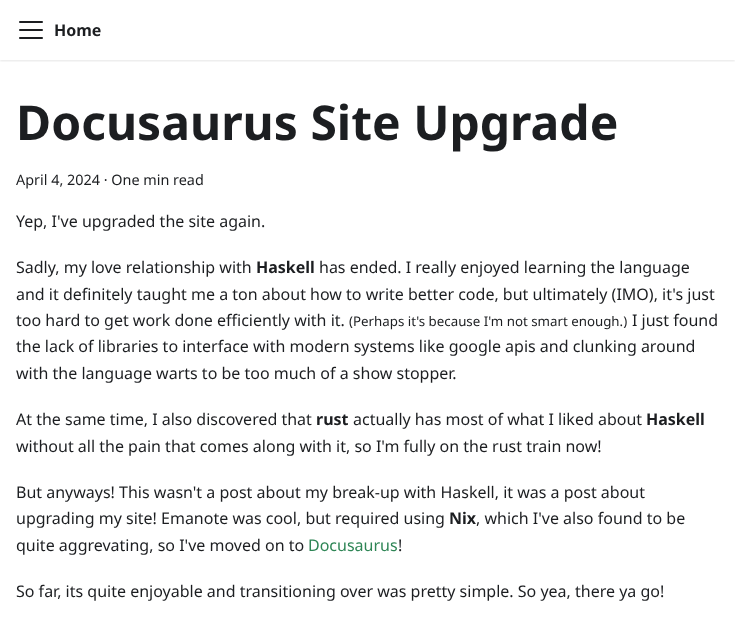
(async () => {
    const canvas = document.querySelector("canvas");
    canvas.width = 735;
    canvas.height = 637;
    const context = canvas.getContext("2d");
    context.miterLimit = 4;
    context.fontKerning = "normal";
    function write(s, x, y, font, color) {
        context.font = font;
        context.fillStyle = color;
        context.fillText(s, x, y);
    }
    function block(x, y, w, h, color) {
        context.fillStyle = color;
        context.fillRect(x, y, w, h);
    }
    async function photo(src, x, y, w, h) {
        const img = new Image();
        img.src = src;
        await img.decode();
        context.drawImage(img, x, y, w, h);
    }

    block(0, 0, 735, 637, "rgb(255, 255, 255)");
    context.save();
    context.beginPath();
    context.rect(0, 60, 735, 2);
    context.clip();
    context.fillStyle = "rgba(0, 0, 0, 0.1)";
    context.filter = "blur(1px)";
    context.beginPath();
    context.rect(0, 1, 735, 60);
    context.fill();
    context.filter = "none";
    context.restore();
    await photo("media/1.png", 19, 21, 24, 18);
    write("Home", 54, 36, "bold 16px Noto Sans", "rgb(28, 30, 33)");
    write("Docusaurus Site Upgrade", 16, 140, "bold 48px Noto Sans", "rgb(28, 30, 33)");
    write("April 4, 2024 · One min read", 16, 185, "14.4px Noto Sans", "rgb(28, 30, 33)");
    write("Yep, I've upgraded the site again.", 16, 227, "16px Noto Sans", "rgb(28, 30, 33)");
    write("Sadly, my love relationship with", 16, 273, "16px Noto Sans", "rgb(28, 30, 33)");
    write("Haskell", 256, 273, "bold 16px Noto Sans", "rgb(28, 30, 33)");
    write("has ended. I really enjoyed learning the language", 319, 273, "16px Noto Sans", "rgb(28, 30, 33)");
    write("and it definitely taught me a ton about how to write better code, but ultimately (IMO), it's just", 16, 300, "16px Noto Sans", "rgb(28, 30, 33)");
    write("too hard to get work done efficiently with it.", 16, 326, "16px Noto Sans", "rgb(28, 30, 33)");
    write("(Perhaps it's because I'm not smart enough.)", 349, 326, "13.3px Noto Sans", "rgb(28, 30, 33)");
    write("I just found", 632, 326, "16px Noto Sans", "rgb(28, 30, 33)");
    write("the lack of libraries to interface with modern systems like google apis and clunking around", 16, 352, "16px Noto Sans", "rgb(28, 30, 33)");
    write("with the language warts to be too much of a show stopper.", 16, 379, "16px Noto Sans", "rgb(28, 30, 33)");
    write("At the same time, I also discovered that", 16, 425, "16px Noto Sans", "rgb(28, 30, 33)");
    write("rust", 316, 425, "bold 16px Noto Sans", "rgb(28, 30, 33)");
    write("actually has most of what I liked about", 353, 425, "16px Noto Sans", "rgb(28, 30, 33)");
    write("Haskell", 646, 425, "bold 16px Noto Sans", "rgb(28, 30, 33)");
    write("without all the pain that comes along with it, so I'm fully on the rust train now!", 16, 452, "16px Noto Sans", "rgb(28, 30, 33)");
    write("But anyways! This wasn't a post about my break-up with Haskell, it was a post about", 16, 498, "16px Noto Sans", "rgb(28, 30, 33)");
    write("upgrading my site! Emanote was cool, but required using", 16, 524, "16px Noto Sans", "rgb(28, 30, 33)");
    write("Nix", 449, 524, "bold 16px Noto Sans", "rgb(28, 30, 33)");
    write(", which I've also found to be", 476, 524, "16px Noto Sans", "rgb(28, 30, 33)");
    write("quite aggrevating, so I've moved on to", 16, 551, "16px Noto Sans", "rgb(28, 30, 33)");
    write("Docusaurus", 308, 551, "16px Noto Sans", "rgb(46, 133, 85)");
    write("!", 398, 551, "16px Noto Sans", "rgb(28, 30, 33)");
    write("So far, its quite enjoyable and transitioning over was pretty simple. So yea, there ya go!", 16, 597, "16px Noto Sans", "rgb(28, 30, 33)");
})();
